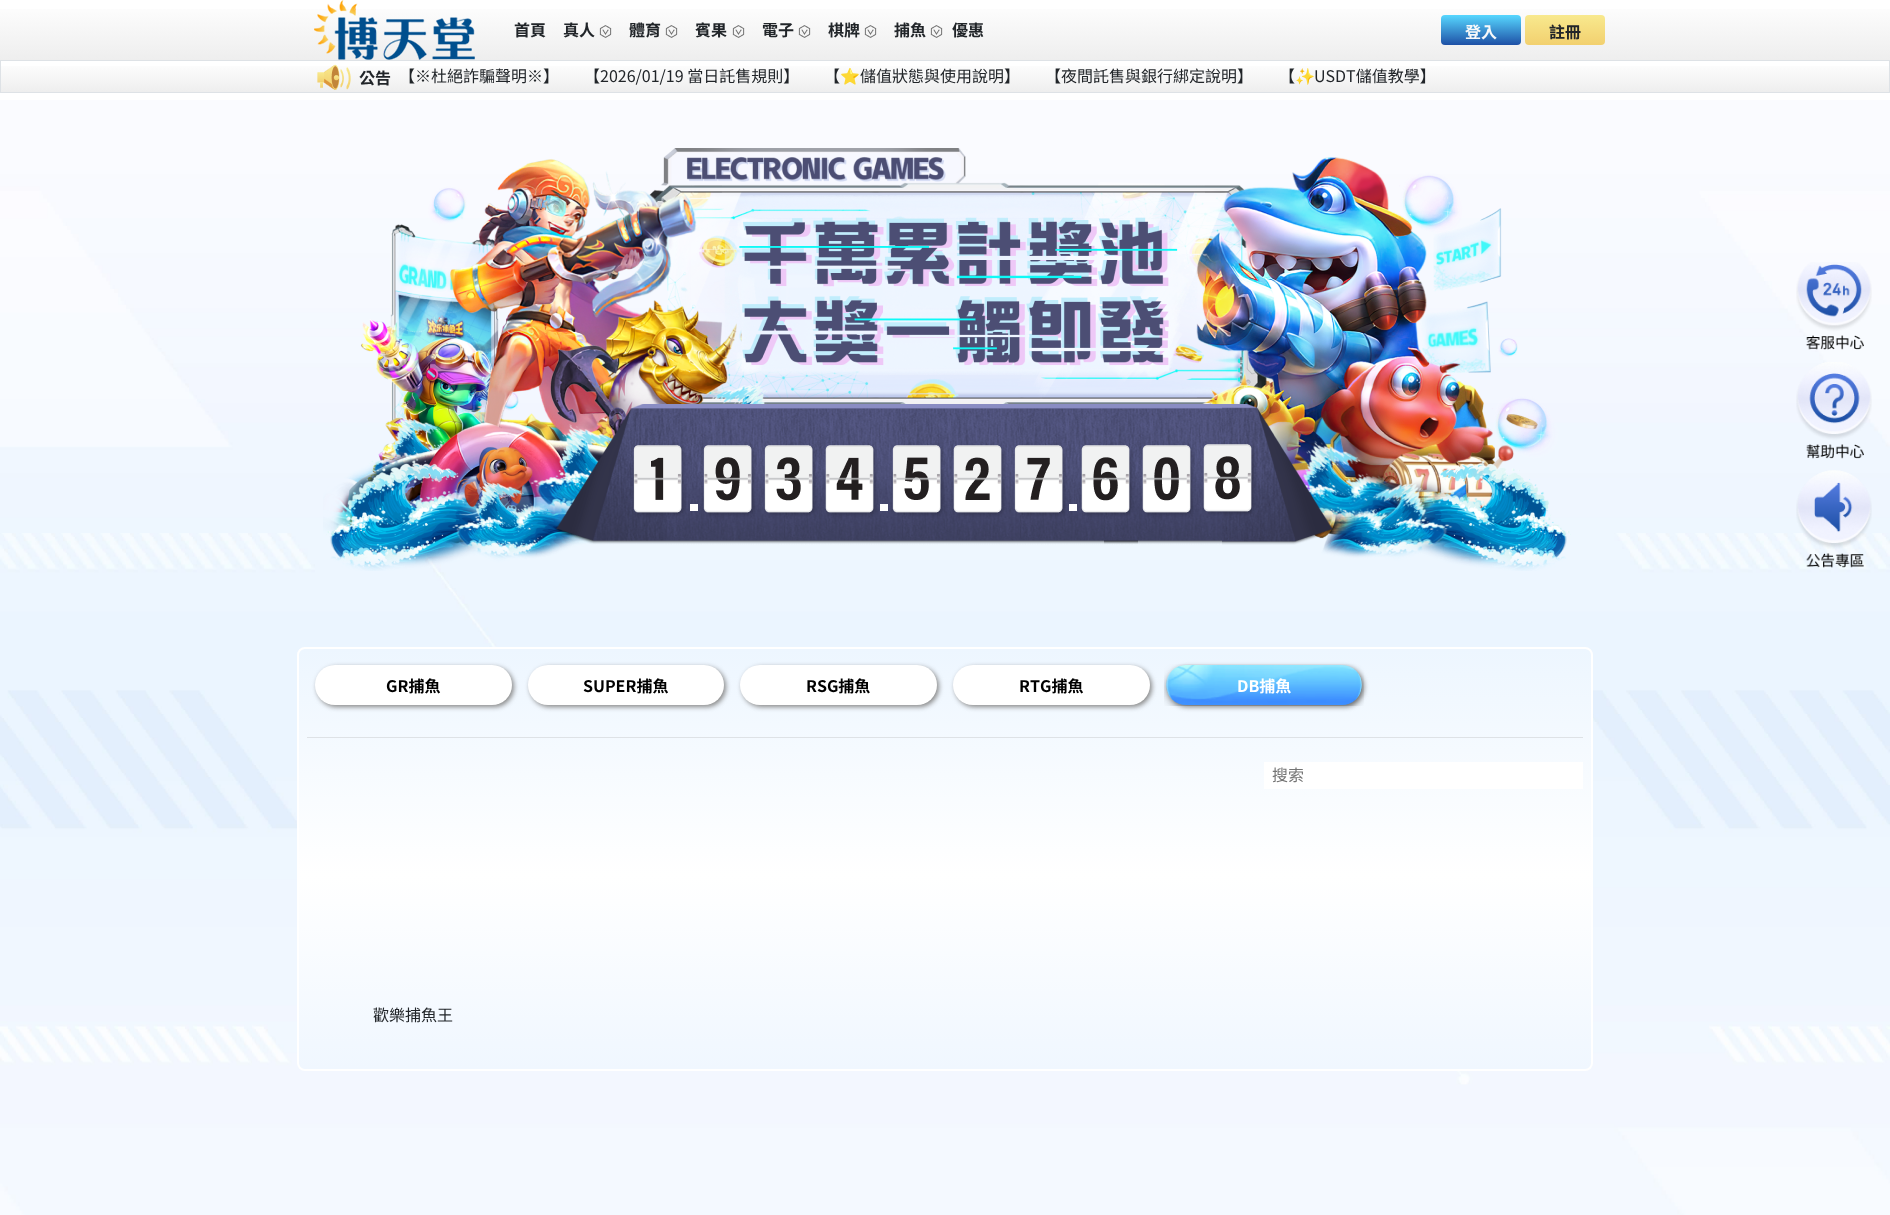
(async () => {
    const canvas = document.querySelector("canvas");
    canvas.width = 1890;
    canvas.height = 1215;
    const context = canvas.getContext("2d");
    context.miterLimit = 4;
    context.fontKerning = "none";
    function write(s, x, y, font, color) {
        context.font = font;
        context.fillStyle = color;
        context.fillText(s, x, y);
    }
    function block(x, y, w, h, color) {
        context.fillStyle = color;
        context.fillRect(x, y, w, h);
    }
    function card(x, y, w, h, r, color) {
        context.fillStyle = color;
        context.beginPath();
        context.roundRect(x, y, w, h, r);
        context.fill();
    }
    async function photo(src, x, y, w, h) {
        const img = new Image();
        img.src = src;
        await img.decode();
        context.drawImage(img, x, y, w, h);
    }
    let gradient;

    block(0, 0, 1890, 1215, "rgb(255, 255, 255)");
    gradient = context.createLinearGradient(945, 0, 945, 60);
    gradient.addColorStop(0, "rgb(255, 255, 255)");
    gradient.addColorStop(1, "rgb(238, 238, 238)");
    context.fillStyle = gradient;
    context.fillRect(0, 9, 1890, 51);
    await photo("media/1.png", 314, 0, 161, 60);
    write("首頁", 514, 36, "bold 16px Noto Sans TC", "rgb(33, 37, 41)");
    write("真人", 563, 36, "bold 16px Noto Sans TC", "rgb(33, 37, 41)");
    await photo("media/2.png", 599, 25, 13, 13);
    write("體育", 629, 36, "bold 16px Noto Sans TC", "rgb(33, 37, 41)");
    await photo("media/2.png", 665, 25, 13, 13);
    write("賓果", 695, 36, "bold 16px Noto Sans TC", "rgb(33, 37, 41)");
    await photo("media/2.png", 732, 25, 13, 13);
    write("電子", 762, 36, "bold 16px Noto Sans TC", "rgb(33, 37, 41)");
    await photo("media/2.png", 798, 25, 13, 13);
    write("棋牌", 828, 36, "bold 16px Noto Sans TC", "rgb(33, 37, 41)");
    await photo("media/2.png", 864, 25, 13, 13);
    write("捕魚", 894, 36, "bold 16px Noto Sans TC", "rgb(33, 37, 41)");
    await photo("media/2.png", 930, 25, 13, 13);
    write("優惠", 952, 36, "bold 16px Noto Sans TC", "rgb(33, 37, 41)");
    gradient = context.createLinearGradient(1481, 15, 1481, 45);
    gradient.addColorStop(0, "rgb(87, 215, 255)");
    gradient.addColorStop(1, "rgb(30, 80, 166)");
    context.fillStyle = gradient;
    context.beginPath();
    context.roundRect(1441, 15, 80, 30, 4);
    context.fill();
    write("登入", 1465, 38, "bold 16px Noto Sans TC", "rgb(248, 249, 250)");
    gradient = context.createLinearGradient(1565, 15, 1565, 45);
    gradient.addColorStop(0, "rgb(248, 233, 142)");
    gradient.addColorStop(1, "rgb(242, 208, 111)");
    context.fillStyle = gradient;
    context.beginPath();
    context.roundRect(1525, 15, 80, 30, 4);
    context.fill();
    write("註冊", 1549, 38, "bold 16px Noto Sans TC", "rgb(33, 37, 41)");
    gradient = context.createLinearGradient(945, 61, 945, 92);
    gradient.addColorStop(0, "rgb(255, 255, 255)");
    gradient.addColorStop(1, "rgb(238, 238, 238)");
    context.fillStyle = gradient;
    context.fillRect(1, 66, 1888, 26);
    context.strokeStyle = "rgb(222, 226, 230)";
    context.strokeRect(0.5, 60.5, 1889, 32);
    await photo("media/3.png", 317, 64, 34, 26);
    write("公告", 359, 84, "bold 16px Noto Sans TC", "rgb(33, 37, 41)");
    write("【※杜絕詐騙聲明※】", 399, 82, "16px Noto Sans TC", "rgb(33, 37, 41)");
    write("【2026/01/19 當日託售規則】", 584, 82, "16px Noto Sans TC", "rgb(33, 37, 41)");
    write("【", 824, 82, "16px Noto Sans TC", "rgb(33, 37, 41)");
    write("⭐", 840, 82, "16px Noto Color Emoji", "rgb(33, 37, 41)");
    write("儲值狀態與使用說明】", 860, 82, "16px Noto Sans TC", "rgb(33, 37, 41)");
    write("【夜間託售與銀行綁定說明】", 1045, 82, "16px Noto Sans TC", "rgb(33, 37, 41)");
    write("【", 1279, 82, "16px Noto Sans TC", "rgb(33, 37, 41)");
    write("✨", 1295, 82, "16px Noto Color Emoji", "rgb(33, 37, 41)");
    write("USDT儲值教學】", 1314, 82, "16px Noto Sans TC", "rgb(33, 37, 41)");
    await photo("media/7.png", 0, 100, 1890, 1115);
    await photo("media/4.png", 1796, 262, 76, 88);
    await photo("media/5.png", 1796, 362, 76, 97);
    await photo("media/6.png", 1796, 470, 76, 98);
    await photo("media/8.png", 323, 148, 1248, 423);
    context.save();
    context.beginPath();
    context.roundRect(297, 647, 1296, 424, 8);
    context.clip();
    gradient = context.createLinearGradient(945, 649, 945, 1069);
    gradient.addColorStop(0, "rgb(237, 246, 255)");
    gradient.addColorStop(0.54, "rgb(255, 255, 255)");
    gradient.addColorStop(1, "rgb(240, 247, 255)");
    context.fillStyle = gradient;
    context.fillRect(297, 649, 1296, 420);
    context.restore();
    context.beginPath();
    context.roundRect(298, 648, 1294, 422, 7);
    context.strokeStyle = "rgb(255, 255, 255)";
    context.lineWidth = 2;
    context.stroke();
    context.fillStyle = "rgb(136, 136, 136)";
    context.filter = "blur(2.5px)";
    context.beginPath();
    context.roundRect(317, 667, 197, 40, 20);
    context.fill();
    context.filter = "none";
    card(315, 665, 197, 40, 20, "rgb(255, 255, 255)");
    write("GR捕魚", 386, 692, "bold 16px Noto Sans TC", "rgb(0, 0, 0)");
    context.fillStyle = "rgb(136, 136, 136)";
    context.filter = "blur(2.5px)";
    context.beginPath();
    context.roundRect(530, 667, 196, 40, 20);
    context.fill();
    context.filter = "none";
    card(528, 665, 196, 40, 20, "rgb(255, 255, 255)");
    write("SUPER捕魚", 583, 692, "bold 16px Noto Sans TC", "rgb(0, 0, 0)");
    context.fillStyle = "rgb(136, 136, 136)";
    context.filter = "blur(2.5px)";
    context.beginPath();
    context.roundRect(742, 667, 197, 40, 20);
    context.fill();
    context.filter = "none";
    card(740, 665, 197, 40, 20, "rgb(255, 255, 255)");
    write("RSG捕魚", 806, 692, "bold 16px Noto Sans TC", "rgb(0, 0, 0)");
    context.fillStyle = "rgb(136, 136, 136)";
    context.filter = "blur(2.5px)";
    context.beginPath();
    context.roundRect(955, 667, 197, 40, 20);
    context.fill();
    context.filter = "none";
    card(953, 665, 197, 40, 20, "rgb(255, 255, 255)");
    write("RTG捕魚", 1019, 692, "bold 16px Noto Sans TC", "rgb(0, 0, 0)");
    context.fillStyle = "rgb(136, 136, 136)";
    context.filter = "blur(2.5px)";
    context.beginPath();
    context.roundRect(1168, 667, 196, 40, 20);
    context.fill();
    context.filter = "none";
    await photo("media/9.png", 1164, 664, 200, 42);
    write("DB捕魚", 1237, 692, "bold 16px Noto Sans TC", "rgb(255, 255, 255)");
    block(307, 737, 1276, 1, "rgb(222, 226, 230)");
    block(1264, 762, 319, 27, "rgb(255, 255, 255)");
    write("搜索", 1272, 781, "16px Noto Sans TC", "rgb(117, 117, 117)");
    write("歡樂捕魚王", 373, 1021, "16px Noto Sans TC", "rgb(33, 37, 41)");
})();
